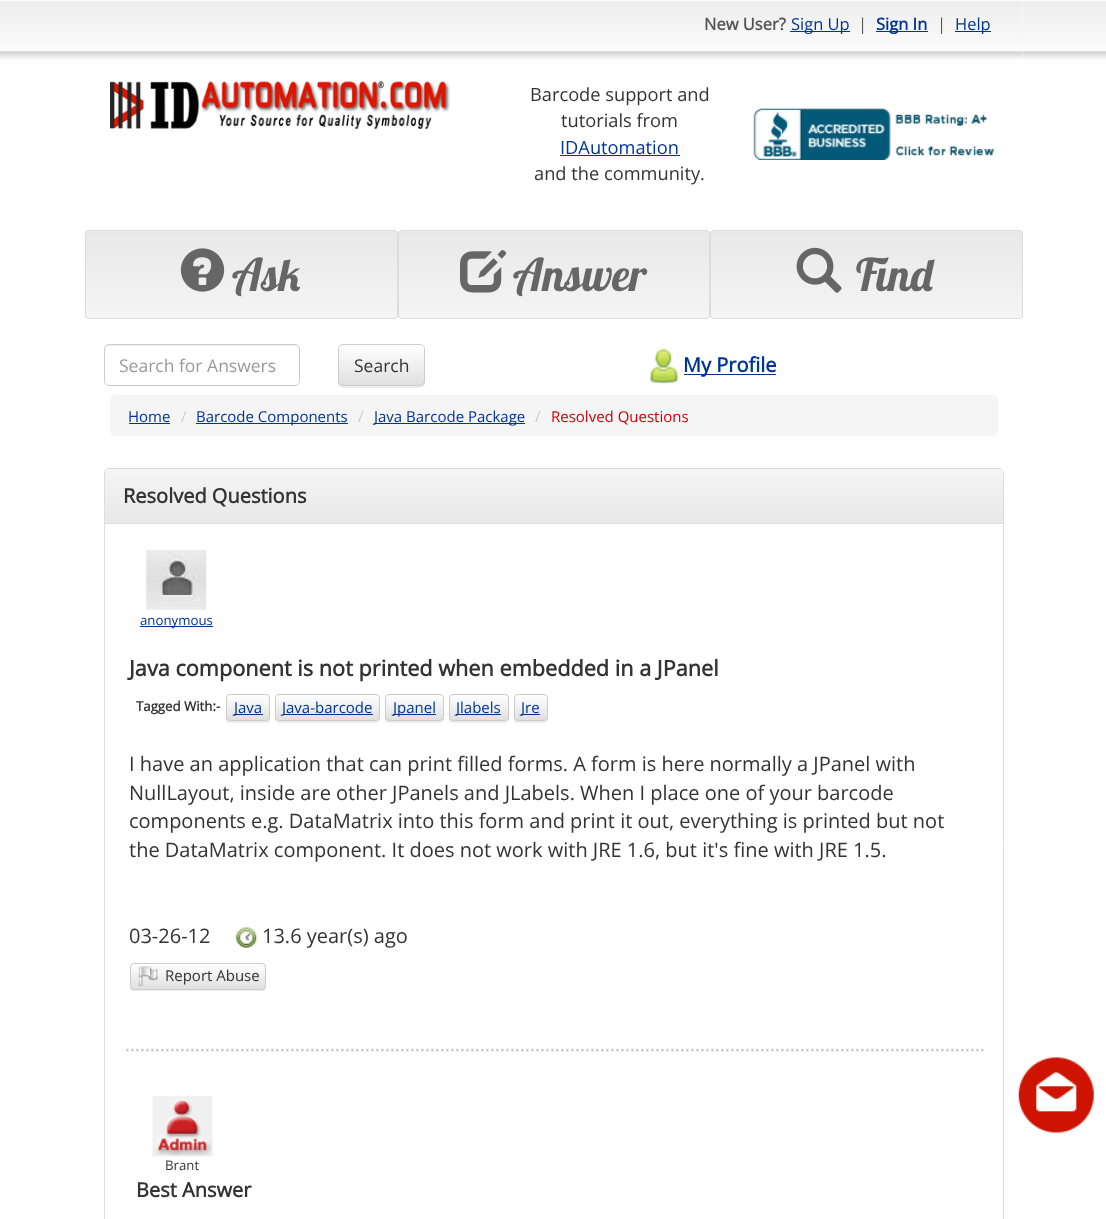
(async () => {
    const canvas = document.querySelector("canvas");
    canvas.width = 1106;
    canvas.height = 1219;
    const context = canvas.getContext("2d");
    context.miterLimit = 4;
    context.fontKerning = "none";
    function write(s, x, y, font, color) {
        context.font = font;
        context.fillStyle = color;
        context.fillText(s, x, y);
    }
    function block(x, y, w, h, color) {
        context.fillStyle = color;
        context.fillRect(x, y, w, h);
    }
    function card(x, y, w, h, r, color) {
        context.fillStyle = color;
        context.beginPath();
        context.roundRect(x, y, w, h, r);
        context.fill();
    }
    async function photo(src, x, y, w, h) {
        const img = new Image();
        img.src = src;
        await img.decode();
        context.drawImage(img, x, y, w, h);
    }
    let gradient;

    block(0, 0, 1106, 1219, "rgb(255, 255, 255)");
    await photo("media/1.png", 0, 0, 1106, 60);
    block(85, 0, 938, 60, "rgb(255, 255, 255)");
    await photo("media/2.png", 85, 0, 938, 60);
    write("New User?", 704, 30, "bold 16.5px Open Sans", "rgb(85, 85, 85)");
    block(790, 31, 60, 1, "rgb(0, 51, 153)");
    write("Sign Up", 791, 30, "16.5px Open Sans", "rgb(0, 51, 153)");
    write("|", 858, 30, "16.5px Open Sans", "rgb(85, 85, 85)");
    block(876, 31, 52, 1, "rgb(0, 51, 153)");
    write("Sign In", 876, 30, "bold 16.5px Open Sans", "rgb(0, 51, 153)");
    write("|", 937, 30, "16.5px Open Sans", "rgb(85, 85, 85)");
    block(955, 31, 36, 1, "rgb(0, 51, 153)");
    write("Help", 955, 30, "16.5px Open Sans", "rgb(0, 51, 153)");
    await photo("media/3.png", 110, 81, 340, 48);
    write("Barcode support and", 530, 101, "18.25px Open Sans", "rgb(51, 51, 51)");
    write("tutorials from", 561, 127, "18.25px Open Sans", "rgb(51, 51, 51)");
    write("IDAutomation", 560, 154, "18.25px Open Sans", "rgb(0, 51, 153)");
    block(560, 155, 120, 1, "rgb(0, 51, 153)");
    write("and the community.", 534, 180, "18.25px Open Sans", "rgb(51, 51, 51)");
    await photo("media/4.png", 753, 108, 241, 52);
    await photo("media/5.png", 1018, 1057, 76, 76);
    context.save();
    context.beginPath();
    context.roundRect(85, 230, 313, 89, 4);
    context.clip();
    gradient = context.createLinearGradient(241, 231, 241, 318);
    gradient.addColorStop(0, "rgb(232, 232, 232)");
    gradient.addColorStop(1, "rgb(245, 245, 245)");
    context.fillStyle = gradient;
    context.fillRect(85, 231, 313, 87);
    context.restore();
    context.beginPath();
    context.roundRect(85.5, 230.5, 312, 88, 3.5);
    context.strokeStyle = "rgb(220, 220, 220)";
    context.stroke();
    await photo("media/6.png", 180, 248, 45, 44);
    write("Ask", 234, 291, "italic bold 45px Lobster Two", "rgb(102, 102, 102)");
    context.save();
    context.beginPath();
    context.roundRect(398, 230, 312, 89, 4);
    context.clip();
    gradient = context.createLinearGradient(554, 231, 554, 318);
    gradient.addColorStop(0, "rgb(232, 232, 232)");
    gradient.addColorStop(1, "rgb(245, 245, 245)");
    context.fillStyle = gradient;
    context.fillRect(398, 231, 312, 87);
    context.restore();
    context.beginPath();
    context.roundRect(398.5, 230.5, 311, 88, 3.5);
    context.stroke();
    await photo("media/7.png", 460, 250, 47, 43);
    write("Answer", 515, 291, "italic bold 45px Lobster Two", "rgb(102, 102, 102)");
    context.save();
    context.beginPath();
    context.roundRect(710, 230, 313, 89, 4);
    context.clip();
    gradient = context.createLinearGradient(866, 231, 866, 318);
    gradient.addColorStop(0, "rgb(232, 232, 232)");
    gradient.addColorStop(1, "rgb(245, 245, 245)");
    context.fillStyle = gradient;
    context.fillRect(710, 231, 313, 87);
    context.restore();
    context.beginPath();
    context.roundRect(710.5, 230.5, 312, 88, 3.5);
    context.stroke();
    await photo("media/8.png", 796, 247, 46, 46);
    write("Find", 851, 291, "italic bold 45px Lobster Two", "rgb(102, 102, 102)");
    context.fillStyle = "rgb(236, 236, 236)";
    context.beginPath();
    context.moveTo(109, 346);
    context.lineTo(295, 346);
    context.bezierCurveTo(297, 346, 299, 348, 299, 350);
    context.lineTo(299, 349);
    context.bezierCurveTo(299, 347, 297, 345, 295, 345);
    context.lineTo(109, 345);
    context.bezierCurveTo(107, 345, 105, 347, 105, 349);
    context.lineTo(105, 350);
    context.bezierCurveTo(105, 348, 107, 346, 109, 346);
    context.closePath();
    context.fill();
    context.beginPath();
    context.roundRect(104.5, 344.5, 195, 41, 4.5);
    context.strokeStyle = "rgb(204, 204, 204)";
    context.stroke();
    write("Search for Answers", 119, 372, "17.5px Open Sans", "rgb(153, 153, 153)");
    context.fillStyle = "rgba(0, 0, 0, 0.07)";
    context.filter = "blur(0.5px)";
    context.beginPath();
    context.roundRect(338, 345, 87, 43, 5);
    context.fill();
    context.filter = "none";
    context.save();
    context.beginPath();
    context.roundRect(338, 344, 87, 42, 5);
    context.clip();
    gradient = context.createLinearGradient(381, 345, 381, 385);
    gradient.addColorStop(0, "rgb(255, 255, 255)");
    gradient.addColorStop(1, "rgb(224, 224, 224)");
    context.fillStyle = gradient;
    context.fillRect(338, 345, 87, 40);
    context.restore();
    context.beginPath();
    context.roundRect(338.5, 344.5, 86, 41, 4.5);
    context.stroke();
    write("Search", 354, 372, "17.5px Open Sans", "rgb(51, 51, 51)");
    await photo("media/9.png", 649, 348, 29, 36);
    block(684, 374, 92, 1, "rgb(0, 51, 153)");
    write("My Profile", 683, 372, "bold 20px Open Sans", "rgb(0, 51, 153)");
    card(110, 395, 888, 41, 5, "rgb(245, 245, 245)");
    write("Home", 128, 422, "15px Open Sans", "rgb(0, 51, 153)");
    block(129, 423, 41, 1, "rgb(0, 51, 153)");
    write("/", 181, 422, "15px Open Sans", "rgb(204, 204, 204)");
    block(196, 423, 152, 1, "rgb(0, 51, 153)");
    write("Barcode Components", 196, 422, "15px Open Sans", "rgb(0, 51, 153)");
    write("/", 358, 422, "15px Open Sans", "rgb(204, 204, 204)");
    block(374, 423, 151, 1, "rgb(0, 51, 153)");
    write("Java Barcode Package", 374, 422, "15px Open Sans", "rgb(0, 51, 153)");
    write("/", 535, 422, "15px Open Sans", "rgb(204, 204, 204)");
    write("Resolved Questions", 551, 422, "15px Open Sans", "rgb(204, 0, 4)");
    context.beginPath();
    context.roundRect(104.5, 468.5, 899, 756, 4.5);
    context.strokeStyle = "rgb(221, 221, 221)";
    context.stroke();
    gradient = context.createLinearGradient(554, 469, 554, 523);
    gradient.addColorStop(0, "rgb(245, 245, 245)");
    gradient.addColorStop(1, "rgb(232, 232, 232)");
    context.fillStyle = gradient;
    context.beginPath();
    context.roundRect(105, 469, 898, 54, [4, 4, 0, 0]);
    context.fill();
    block(105, 523, 898, 1, "rgb(221, 221, 221)");
    write("Resolved Questions", 123, 503, "bold 20px Open Sans", "rgb(51, 51, 51)");
    await photo("media/10.png", 146, 550, 61, 60);
    block(140, 626, 73, 1, "rgb(0, 51, 153)");
    write("anonymous", 140, 625, "13.25px Open Sans", "rgb(0, 51, 153)");
    write("Java component is not printed when embedded in a JPanel", 129, 676, "bold 21.7px Open Sans", "rgb(51, 51, 51)");
    write("Tagged With:-", 136, 711, "bold 13.25px Open Sans", "rgb(51, 51, 51)");
    context.fillStyle = "rgba(0, 0, 0, 0.07)";
    context.filter = "blur(0.5px)";
    context.beginPath();
    context.roundRect(226, 695, 44, 28, 4);
    context.fill();
    context.filter = "none";
    context.save();
    context.beginPath();
    context.roundRect(226, 694, 44, 27, 4);
    context.clip();
    gradient = context.createLinearGradient(248, 695, 248, 720);
    gradient.addColorStop(0, "rgb(255, 255, 255)");
    gradient.addColorStop(1, "rgb(224, 224, 224)");
    context.fillStyle = gradient;
    context.fillRect(226, 695, 44, 25);
    context.restore();
    context.beginPath();
    context.roundRect(226.5, 694.5, 43, 26, 3.5);
    context.strokeStyle = "rgb(204, 204, 204)";
    context.stroke();
    block(234, 714, 29, 1, "rgb(0, 51, 153)");
    write("Java", 234, 713, "15px Open Sans", "rgb(0, 51, 153)");
    context.fillStyle = "rgba(0, 0, 0, 0.07)";
    context.filter = "blur(0.5px)";
    context.beginPath();
    context.roundRect(275, 695, 105, 28, 4);
    context.fill();
    context.filter = "none";
    context.save();
    context.beginPath();
    context.roundRect(275, 694, 105, 27, 4);
    context.clip();
    gradient = context.createLinearGradient(328, 695, 328, 720);
    gradient.addColorStop(0, "rgb(255, 255, 255)");
    gradient.addColorStop(1, "rgb(224, 224, 224)");
    context.fillStyle = gradient;
    context.fillRect(275, 695, 105, 25);
    context.restore();
    context.beginPath();
    context.roundRect(275.5, 694.5, 104, 26, 3.5);
    context.stroke();
    block(283, 714, 90, 1, "rgb(0, 51, 153)");
    write("Java-barcode", 282, 713, "15px Open Sans", "rgb(0, 51, 153)");
    context.fillStyle = "rgba(0, 0, 0, 0.07)";
    context.filter = "blur(0.5px)";
    context.beginPath();
    context.roundRect(385, 695, 59, 28, 4);
    context.fill();
    context.filter = "none";
    context.save();
    context.beginPath();
    context.roundRect(385, 694, 59, 27, 4);
    context.clip();
    gradient = context.createLinearGradient(414, 695, 414, 720);
    gradient.addColorStop(0, "rgb(255, 255, 255)");
    gradient.addColorStop(1, "rgb(224, 224, 224)");
    context.fillStyle = gradient;
    context.fillRect(385, 695, 59, 25);
    context.restore();
    context.fillStyle = "rgba(255, 255, 255, 0.15)";
    context.beginPath();
    context.moveTo(389, 696);
    context.lineTo(440, 696);
    context.bezierCurveTo(443, 696, 442, 704, 442, 706);
    context.lineTo(442, 720);
    context.bezierCurveTo(443, 719, 443, 718, 443, 718);
    context.lineTo(443, 698);
    context.bezierCurveTo(443, 696, 442, 695, 440, 695);
    context.lineTo(388, 695);
    context.bezierCurveTo(387, 695, 386, 696, 386, 698);
    context.lineTo(386, 699);
    context.bezierCurveTo(386, 697, 387, 696, 389, 696);
    context.closePath();
    context.fill();
    context.beginPath();
    context.roundRect(385.5, 694.5, 58, 26, 3.5);
    context.stroke();
    block(393, 714, 43, 1, "rgb(0, 51, 153)");
    write("Jpanel", 393, 713, "15px Open Sans", "rgb(0, 51, 153)");
    context.fillStyle = "rgba(0, 0, 0, 0.07)";
    context.filter = "blur(0.5px)";
    context.beginPath();
    context.roundRect(449, 695, 60, 28, 4);
    context.fill();
    context.filter = "none";
    context.save();
    context.beginPath();
    context.roundRect(449, 694, 60, 27, 4);
    context.clip();
    gradient = context.createLinearGradient(479, 695, 479, 720);
    gradient.addColorStop(0, "rgb(255, 255, 255)");
    gradient.addColorStop(1, "rgb(224, 224, 224)");
    context.fillStyle = gradient;
    context.fillRect(449, 695, 60, 25);
    context.restore();
    context.beginPath();
    context.roundRect(449.5, 694.5, 59, 26, 3.5);
    context.stroke();
    block(456, 714, 45, 1, "rgb(0, 51, 153)");
    write("Jlabels", 456, 713, "15px Open Sans", "rgb(0, 51, 153)");
    context.fillStyle = "rgba(0, 0, 0, 0.07)";
    context.filter = "blur(0.5px)";
    context.beginPath();
    context.roundRect(514, 695, 34, 28, 4);
    context.fill();
    context.filter = "none";
    context.save();
    context.beginPath();
    context.roundRect(514, 694, 34, 27, 4);
    context.clip();
    gradient = context.createLinearGradient(531, 695, 531, 720);
    gradient.addColorStop(0, "rgb(255, 255, 255)");
    gradient.addColorStop(1, "rgb(224, 224, 224)");
    context.fillStyle = gradient;
    context.fillRect(514, 695, 34, 25);
    context.restore();
    context.beginPath();
    context.roundRect(514.5, 694.5, 33, 26, 3.5);
    context.stroke();
    block(521, 714, 19, 1, "rgb(0, 51, 153)");
    write("Jre", 521, 713, "15px Open Sans", "rgb(0, 51, 153)");
    write("I have an application that can print filled forms. A form is here normally a JPanel with", 129, 771, "20px Open Sans", "rgb(51, 51, 51)");
    write("NullLayout, inside are other JPanels and JLabels. When I place one of your barcode", 129, 800, "20px Open Sans", "rgb(51, 51, 51)");
    write("components e.g. DataMatrix into this form and print it out, everything is printed but not", 129, 828, "20px Open Sans", "rgb(51, 51, 51)");
    write("the DataMatrix component. It does not work with JRE 1.6, but it's fine with JRE 1.5.", 129, 857, "20px Open Sans", "rgb(51, 51, 51)");
    write("03-26-12", 129, 943, "20px Open Sans", "rgb(51, 51, 51)");
    await photo("media/11.png", 236, 927, 21, 21);
    write("13.6 year(s) ago", 262, 943, "20px Open Sans", "rgb(51, 51, 51)");
    context.fillStyle = "rgba(0, 0, 0, 0.07)";
    context.filter = "blur(0.5px)";
    context.beginPath();
    context.roundRect(130, 964, 136, 27, 4);
    context.fill();
    context.filter = "none";
    context.save();
    context.beginPath();
    context.roundRect(130, 963, 136, 27, 4);
    context.clip();
    gradient = context.createLinearGradient(198, 964, 198, 989);
    gradient.addColorStop(0, "rgb(255, 255, 255)");
    gradient.addColorStop(1, "rgb(224, 224, 224)");
    context.fillStyle = gradient;
    context.fillRect(130, 964, 136, 25);
    context.restore();
    context.beginPath();
    context.roundRect(130.5, 963.5, 135, 26, 3.5);
    context.stroke();
    await photo("media/12.png", 138, 966, 20, 21);
    write("Report Abuse", 165, 981, "15px Open Sans", "rgb(51, 51, 51)");
    await photo("media/13.png", 123, 1048, 861, 4);
    await photo("media/14.png", 152, 1096, 61, 61);
    write("Brant", 165, 1170, "13.25px Open Sans", "rgb(51, 51, 51)");
    write("Best Answer", 136, 1197, "bold 20px Open Sans", "rgb(51, 51, 51)");
})();
